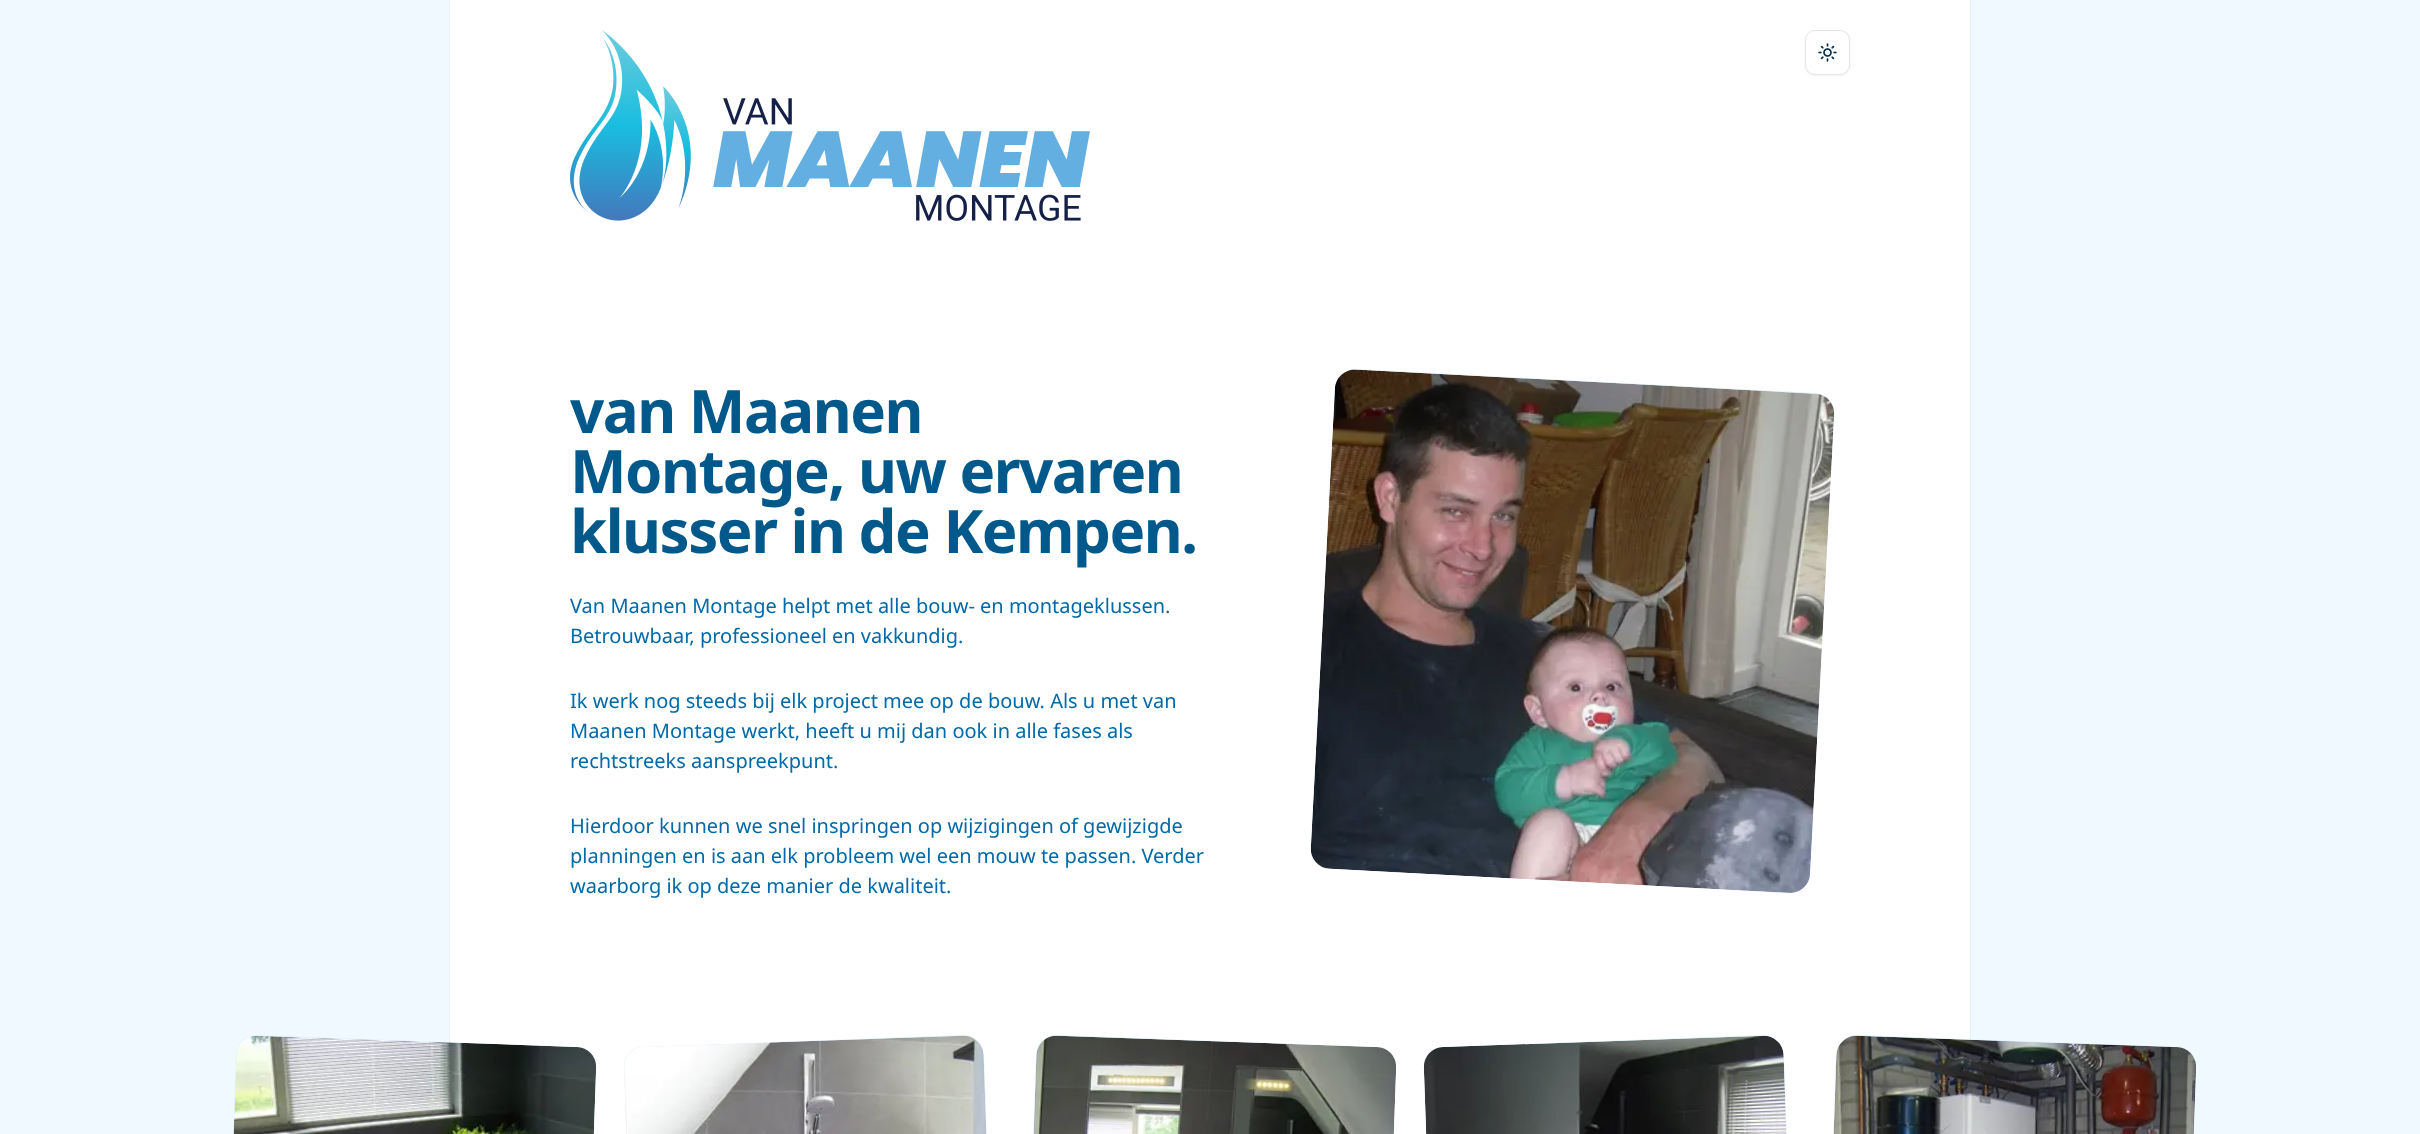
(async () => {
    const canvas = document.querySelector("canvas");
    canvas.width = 2420;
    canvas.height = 1134;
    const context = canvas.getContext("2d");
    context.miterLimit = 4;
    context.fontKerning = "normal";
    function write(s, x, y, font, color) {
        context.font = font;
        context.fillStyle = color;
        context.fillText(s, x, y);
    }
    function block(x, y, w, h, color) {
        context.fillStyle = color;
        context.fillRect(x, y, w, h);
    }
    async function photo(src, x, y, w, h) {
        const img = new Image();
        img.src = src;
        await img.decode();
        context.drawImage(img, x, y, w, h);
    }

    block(0, 0, 2420, 1134, "rgb(240, 249, 255)");
    context.strokeStyle = "rgb(223, 242, 254)";
    context.strokeRect(449.5, -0.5, 1521, 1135);
    block(450, 0, 1520, 1134, "rgb(255, 255, 255)");
    await photo("media/1.png", 570, 30, 520, 191);
    context.fillStyle = "rgba(0, 0, 0, 0.05)";
    context.filter = "blur(1px)";
    context.beginPath();
    context.roundRect(1805, 31, 45, 45, 10);
    context.fill();
    context.filter = "none";
    context.fillStyle = "rgb(255, 255, 255)";
    context.beginPath();
    context.roundRect(1805.5, 30.5, 44, 44, 9.5);
    context.fill();
    context.strokeStyle = "rgb(229, 229, 229)";
    context.stroke();
    await photo("media/2.png", 1818, 43, 19, 19);
    context.letterSpacing = "-1.5px";
    write("van Maanen", 570, 433, "bold 60px Noto Sans", "rgb(0, 89, 138)");
    write("Montage, uw ervaren", 570, 493, "bold 60px Noto Sans", "rgb(0, 89, 138)");
    write("klusser in de Kempen.", 570, 553, "bold 60px Noto Sans", "rgb(0, 89, 138)");
    context.letterSpacing = "0px";
    write("Van Maanen Montage helpt met alle bouw- en montageklussen.", 570, 613, "20px Noto Sans", "rgb(0, 105, 168)");
    write("Betrouwbaar, professioneel en vakkundig.", 570, 643, "20px Noto Sans", "rgb(0, 105, 168)");
    write("Ik werk nog steeds bij elk project mee op de bouw. Als u met van", 570, 708, "20px Noto Sans", "rgb(0, 105, 168)");
    write("Maanen Montage werkt, heeft u mij dan ook in alle fases als", 570, 738, "20px Noto Sans", "rgb(0, 105, 168)");
    write("rechtstreeks aanspreekpunt.", 570, 768, "20px Noto Sans", "rgb(0, 105, 168)");
    write("Hierdoor kunnen we snel inspringen op wijzigingen of gewijzigde", 570, 833, "20px Noto Sans", "rgb(0, 105, 168)");
    write("planningen en is aan elk probleem wel een mouw te passen. Verder", 570, 863, "20px Noto Sans", "rgb(0, 105, 168)");
    write("waarborg ik op deze manier de kwaliteit.", 570, 893, "20px Noto Sans", "rgb(0, 105, 168)");
    context.fillStyle = "rgb(223, 242, 254)";
    context.beginPath();
    context.moveTo(1356, 369);
    context.lineTo(1815, 393);
    context.bezierCurveTo(1826, 394, 1835, 403, 1834, 414);
    context.lineTo(1810, 874);
    context.bezierCurveTo(1810, 885, 1800, 893, 1789, 893);
    context.lineTo(1330, 868);
    context.bezierCurveTo(1319, 868, 1310, 859, 1311, 847);
    context.lineTo(1335, 388);
    context.bezierCurveTo(1335, 377, 1345, 369, 1356, 369);
    context.closePath();
    context.fill();
    await photo("media/3.png", 1310, 369, 525, 524);
    context.beginPath();
    context.moveTo(257, 1035);
    context.lineTo(577, 1047);
    context.bezierCurveTo(588, 1047, 597, 1056, 596, 1067);
    context.lineTo(584, 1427);
    context.bezierCurveTo(583, 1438, 574, 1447, 563, 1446);
    context.lineTo(243, 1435);
    context.bezierCurveTo(232, 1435, 223, 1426, 224, 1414);
    context.lineTo(236, 1055);
    context.bezierCurveTo(237, 1044, 246, 1035, 257, 1035);
    context.closePath();
    context.fill();
    await photo("media/4.png", 233, 1036, 364, 98);
    context.beginPath();
    context.moveTo(643, 1047);
    context.lineTo(963, 1035);
    context.bezierCurveTo(974, 1035, 983, 1044, 984, 1055);
    context.lineTo(996, 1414);
    context.bezierCurveTo(997, 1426, 988, 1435, 977, 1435);
    context.lineTo(657, 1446);
    context.bezierCurveTo(646, 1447, 637, 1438, 636, 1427);
    context.lineTo(624, 1067);
    context.bezierCurveTo(623, 1056, 632, 1047, 643, 1047);
    context.closePath();
    context.fill();
    await photo("media/5.png", 624, 1035, 363, 99);
    context.beginPath();
    context.moveTo(1057, 1035);
    context.lineTo(1377, 1047);
    context.bezierCurveTo(1388, 1047, 1397, 1056, 1396, 1067);
    context.lineTo(1384, 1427);
    context.bezierCurveTo(1383, 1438, 1374, 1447, 1363, 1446);
    context.lineTo(1043, 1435);
    context.bezierCurveTo(1032, 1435, 1023, 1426, 1024, 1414);
    context.lineTo(1036, 1055);
    context.bezierCurveTo(1037, 1044, 1046, 1035, 1057, 1035);
    context.closePath();
    context.fill();
    await photo("media/6.png", 1033, 1035, 364, 99);
    context.beginPath();
    context.moveTo(1443, 1047);
    context.lineTo(1763, 1035);
    context.bezierCurveTo(1774, 1035, 1783, 1044, 1784, 1055);
    context.lineTo(1796, 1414);
    context.bezierCurveTo(1797, 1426, 1788, 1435, 1777, 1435);
    context.lineTo(1457, 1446);
    context.bezierCurveTo(1446, 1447, 1437, 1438, 1436, 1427);
    context.lineTo(1424, 1067);
    context.bezierCurveTo(1423, 1056, 1432, 1047, 1443, 1047);
    context.closePath();
    context.fill();
    await photo("media/7.png", 1423, 1035, 363, 99);
    context.beginPath();
    context.moveTo(1857, 1035);
    context.lineTo(2177, 1047);
    context.bezierCurveTo(2188, 1047, 2197, 1056, 2196, 1067);
    context.lineTo(2184, 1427);
    context.bezierCurveTo(2183, 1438, 2174, 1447, 2163, 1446);
    context.lineTo(1843, 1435);
    context.bezierCurveTo(1832, 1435, 1823, 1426, 1824, 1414);
    context.lineTo(1836, 1055);
    context.bezierCurveTo(1837, 1044, 1846, 1035, 1857, 1035);
    context.closePath();
    context.fill();
    await photo("media/8.png", 1833, 1035, 363, 99);
})();
